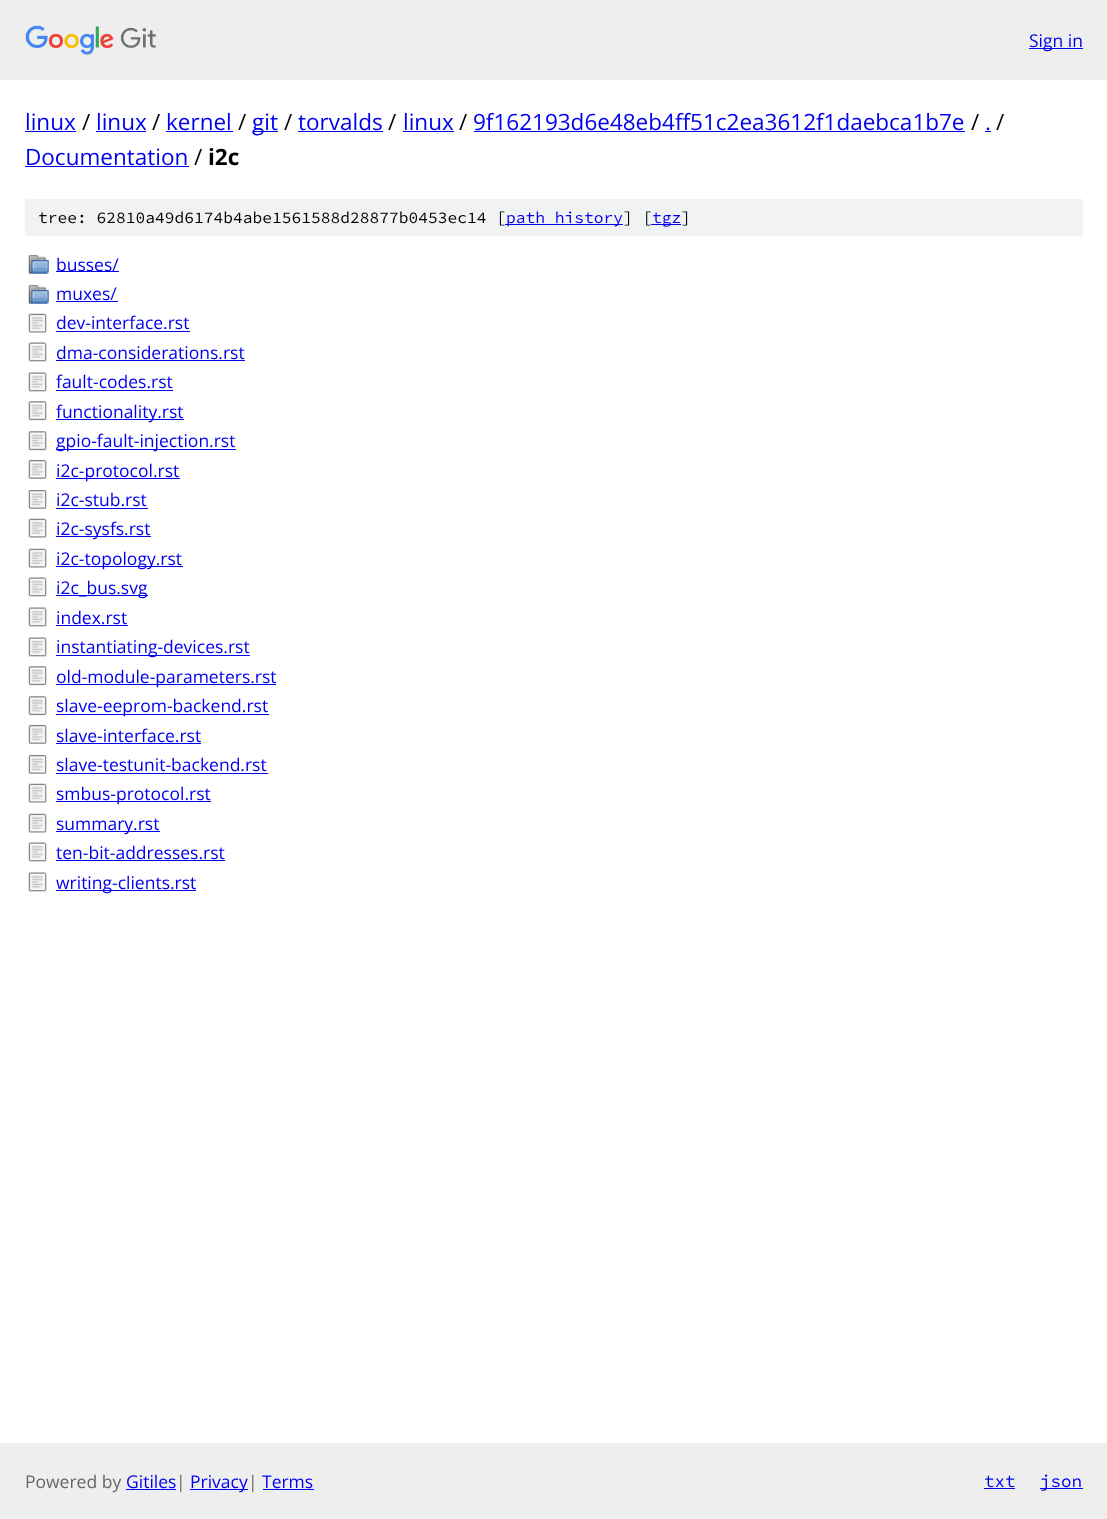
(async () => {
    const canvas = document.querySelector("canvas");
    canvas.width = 1107;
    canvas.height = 1519;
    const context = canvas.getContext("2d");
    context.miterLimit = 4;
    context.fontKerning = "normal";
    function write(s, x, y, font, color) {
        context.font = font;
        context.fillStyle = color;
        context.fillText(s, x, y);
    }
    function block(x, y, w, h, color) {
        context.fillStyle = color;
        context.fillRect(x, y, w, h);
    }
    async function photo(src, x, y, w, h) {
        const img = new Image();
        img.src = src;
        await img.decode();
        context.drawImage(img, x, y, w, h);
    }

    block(0, 0, 1107, 1519, "rgb(255, 255, 255)");
    block(0, 0, 1107, 80, "rgb(238, 238, 238)");
    await photo("media/1.png", 25, 25, 131, 30);
    block(1029, 48, 54, 1, "rgb(0, 0, 238)");
    write("Sign in", 1029, 47, "17.5px Open Sans", "rgb(0, 0, 238)");
    write("linux", 25, 130, "22.5px Open Sans", "rgb(0, 0, 238)");
    block(25, 131, 51, 1, "rgb(0, 0, 238)");
    write("/", 82, 130, "22.5px Open Sans", "rgb(0, 0, 0)");
    write("linux", 96, 130, "22.5px Open Sans", "rgb(0, 0, 238)");
    block(96, 131, 50, 1, "rgb(0, 0, 238)");
    write("/", 152, 130, "22.5px Open Sans", "rgb(0, 0, 0)");
    write("kernel", 166, 130, "22.5px Open Sans", "rgb(0, 0, 238)");
    block(166, 131, 67, 1, "rgb(0, 0, 238)");
    write("/", 238, 130, "22.5px Open Sans", "rgb(0, 0, 0)");
    block(253, 131, 25, 1, "rgb(0, 0, 238)");
    write("git", 252, 130, "22.5px Open Sans", "rgb(0, 0, 238)");
    write("/", 284, 130, "22.5px Open Sans", "rgb(0, 0, 0)");
    write("torvalds", 298, 130, "22.5px Open Sans", "rgb(0, 0, 238)");
    block(298, 131, 85, 1, "rgb(0, 0, 238)");
    write("/", 388, 130, "22.5px Open Sans", "rgb(0, 0, 0)");
    write("linux", 403, 130, "22.5px Open Sans", "rgb(0, 0, 238)");
    block(403, 131, 51, 1, "rgb(0, 0, 238)");
    write("/", 459, 130, "22.5px Open Sans", "rgb(0, 0, 0)");
    write("9f162193d6e48eb4ff51c2ea3612f1daebca1b7e", 473, 130, "22.5px Open Sans", "rgb(0, 0, 238)");
    block(474, 131, 491, 1, "rgb(0, 0, 238)");
    write("/", 971, 130, "22.5px Open Sans", "rgb(0, 0, 0)");
    write(".", 985, 130, "22.5px Open Sans", "rgb(0, 0, 238)");
    block(985, 131, 6, 1, "rgb(0, 0, 238)");
    write("/", 996, 130, "22.5px Open Sans", "rgb(0, 0, 0)");
    write("Documentation", 25, 165, "22.5px Open Sans", "rgb(0, 0, 238)");
    block(25, 166, 164, 1, "rgb(0, 0, 238)");
    write("/", 194, 165, "22.5px Open Sans", "rgb(0, 0, 0)");
    write("i2c", 208, 165, "bold 22.5px Open Sans", "rgb(0, 0, 0)");
    block(25, 199, 1058, 37, "rgb(241, 242, 243)");
    write("tree: 62810a49d6174b4abe1561588d28877b0453ec14 [", 38, 223, "200 16.25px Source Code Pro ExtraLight", "rgb(0, 0, 0)");
    block(505, 224, 118, 1, "rgb(0, 0, 238)");
    write("path history", 506, 223, "200 16.25px Source Code Pro ExtraLight", "rgb(0, 0, 238)");
    write("] [", 623, 223, "200 16.25px Source Code Pro ExtraLight", "rgb(0, 0, 0)");
    block(651, 224, 30, 1, "rgb(0, 0, 238)");
    write("tgz", 652, 223, "200 16.25px Source Code Pro ExtraLight", "rgb(0, 0, 238)");
    write("]", 681, 223, "200 16.25px Source Code Pro ExtraLight", "rgb(0, 0, 0)");
    await photo("media/2.png", 28, 254, 21, 20);
    block(56, 271, 63, 1, "rgb(0, 0, 238)");
    write("busses/", 56, 271, "17.5px Open Sans", "rgb(0, 0, 238)");
    await photo("media/3.png", 28, 284, 21, 20);
    write("muxes/", 56, 300, "17.5px Open Sans", "rgb(0, 0, 238)");
    block(56, 301, 62, 1, "rgb(0, 0, 238)");
    await photo("media/4.png", 28, 313, 19, 20);
    write("dev-interface.rst", 56, 329, "17.5px Open Sans", "rgb(0, 0, 238)");
    block(56, 331, 134, 1, "rgb(0, 0, 238)");
    await photo("media/5.png", 28, 342, 19, 20);
    write("dma-considerations.rst", 56, 359, "17.5px Open Sans", "rgb(0, 0, 238)");
    block(56, 360, 189, 1, "rgb(0, 0, 238)");
    await photo("media/5.png", 28, 372, 19, 20);
    write("fault-codes.rst", 56, 388, "17.5px Open Sans", "rgb(0, 0, 238)");
    block(56, 390, 117, 1, "rgb(0, 0, 238)");
    await photo("media/6.png", 28, 401, 19, 20);
    block(56, 419, 128, 1, "rgb(0, 0, 238)");
    write("functionality.rst", 56, 418, "17.5px Open Sans", "rgb(0, 0, 238)");
    await photo("media/6.png", 28, 431, 19, 20);
    block(56, 449, 180, 1, "rgb(0, 0, 238)");
    write("gpio-fault-injection.rst", 56, 447, "17.5px Open Sans", "rgb(0, 0, 238)");
    await photo("media/7.png", 28, 460, 19, 19);
    block(56, 478, 124, 1, "rgb(0, 0, 238)");
    write("i2c-protocol.rst", 56, 477, "17.5px Open Sans", "rgb(0, 0, 238)");
    await photo("media/7.png", 28, 490, 19, 19);
    write("i2c-stub.rst", 56, 506, "17.5px Open Sans", "rgb(0, 0, 238)");
    block(56, 508, 92, 1, "rgb(0, 0, 238)");
    await photo("media/4.png", 28, 518, 19, 20);
    block(56, 536, 95, 1, "rgb(0, 0, 238)");
    write("i2c-sysfs.rst", 56, 535, "17.5px Open Sans", "rgb(0, 0, 238)");
    await photo("media/4.png", 28, 548, 19, 20);
    block(56, 566, 127, 1, "rgb(0, 0, 238)");
    write("i2c-topology.rst", 56, 565, "17.5px Open Sans", "rgb(0, 0, 238)");
    await photo("media/8.png", 28, 577, 19, 20);
    block(56, 595, 92, 1, "rgb(0, 0, 238)");
    write("i2c_bus.svg", 56, 594, "17.5px Open Sans", "rgb(0, 0, 238)");
    await photo("media/5.png", 28, 607, 19, 20);
    write("index.rst", 56, 624, "17.5px Open Sans", "rgb(0, 0, 238)");
    block(56, 625, 72, 1, "rgb(0, 0, 238)");
    await photo("media/5.png", 28, 637, 19, 20);
    block(56, 655, 194, 1, "rgb(0, 0, 238)");
    write("instantiating-devices.rst", 56, 653, "17.5px Open Sans", "rgb(0, 0, 238)");
    await photo("media/6.png", 28, 666, 19, 20);
    block(56, 684, 220, 1, "rgb(0, 0, 238)");
    write("old-module-parameters.rst", 56, 683, "17.5px Open Sans", "rgb(0, 0, 238)");
    await photo("media/6.png", 28, 696, 19, 20);
    block(56, 714, 213, 1, "rgb(0, 0, 238)");
    write("slave-eeprom-backend.rst", 56, 712, "17.5px Open Sans", "rgb(0, 0, 238)");
    await photo("media/7.png", 28, 725, 19, 19);
    write("slave-interface.rst", 56, 742, "17.5px Open Sans", "rgb(0, 0, 238)");
    block(56, 743, 145, 1, "rgb(0, 0, 238)");
    await photo("media/7.png", 28, 755, 19, 19);
    write("slave-testunit-backend.rst", 56, 771, "17.5px Open Sans", "rgb(0, 0, 238)");
    block(56, 773, 212, 1, "rgb(0, 0, 238)");
    await photo("media/4.png", 28, 783, 19, 20);
    block(56, 801, 155, 1, "rgb(0, 0, 238)");
    write("smbus-protocol.rst", 56, 800, "17.5px Open Sans", "rgb(0, 0, 238)");
    await photo("media/4.png", 28, 813, 19, 20);
    block(56, 831, 104, 1, "rgb(0, 0, 238)");
    write("summary.rst", 56, 830, "17.5px Open Sans", "rgb(0, 0, 238)");
    await photo("media/5.png", 28, 842, 19, 20);
    write("ten-bit-addresses.rst", 56, 859, "17.5px Open Sans", "rgb(0, 0, 238)");
    block(56, 860, 169, 1, "rgb(0, 0, 238)");
    await photo("media/5.png", 28, 872, 19, 20);
    block(56, 890, 140, 1, "rgb(0, 0, 238)");
    write("writing-clients.rst", 56, 889, "17.5px Open Sans", "rgb(0, 0, 238)");
    block(0, 1443, 1107, 76, "rgb(238, 238, 238)");
    write("Powered by", 25, 1488, "17.5px Open Sans", "rgb(102, 102, 102)");
    write("Gitiles", 126, 1488, "17.5px Open Sans", "rgb(0, 0, 238)");
    block(126, 1489, 50, 1, "rgb(0, 0, 238)");
    write("|", 176, 1488, "17.5px Open Sans", "rgb(102, 102, 102)");
    block(190, 1489, 58, 1, "rgb(0, 0, 238)");
    write("Privacy", 190, 1488, "17.5px Open Sans", "rgb(0, 0, 238)");
    write("|", 248, 1488, "17.5px Open Sans", "rgb(102, 102, 102)");
    write("Terms", 262, 1488, "17.5px Open Sans", "rgb(0, 0, 238)");
    block(263, 1489, 51, 1, "rgb(0, 0, 238)");
    write("txt", 984, 1487, "200 17.5px Source Code Pro ExtraLight", "rgb(0, 0, 238)");
    block(984, 1488, 31, 1, "rgb(0, 0, 238)");
    block(1040, 1488, 43, 1, "rgb(0, 0, 238)");
    write("json", 1040, 1487, "200 17.5px Source Code Pro ExtraLight", "rgb(0, 0, 238)");
})();
